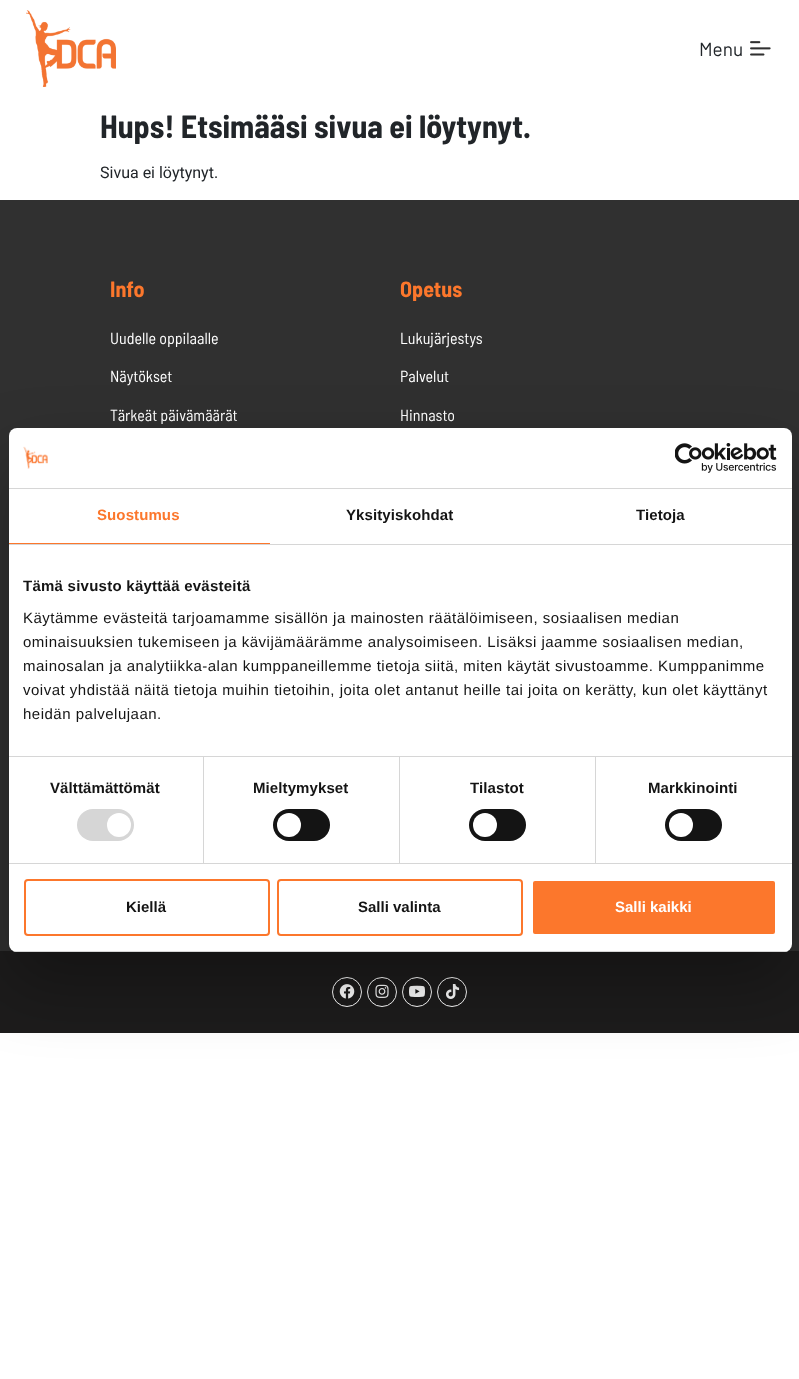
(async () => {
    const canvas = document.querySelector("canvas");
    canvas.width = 799;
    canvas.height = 1379;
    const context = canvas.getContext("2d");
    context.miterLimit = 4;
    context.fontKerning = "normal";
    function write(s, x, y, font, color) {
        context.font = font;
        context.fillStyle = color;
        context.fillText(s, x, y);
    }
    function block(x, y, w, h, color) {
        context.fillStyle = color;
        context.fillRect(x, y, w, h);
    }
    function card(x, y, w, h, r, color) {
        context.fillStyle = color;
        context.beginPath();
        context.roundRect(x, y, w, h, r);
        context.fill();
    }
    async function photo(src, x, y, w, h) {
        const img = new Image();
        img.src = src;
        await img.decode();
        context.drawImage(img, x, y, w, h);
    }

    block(0, 0, 799, 1379, "rgb(255, 255, 255)");
    await photo("media/1.png", 26, 10, 90, 77);
    write("Menu", 699, 56, "19px Barlow", "rgb(33, 37, 41)");
    await photo("media/2.png", 750, 41, 21, 15);
    write("Hups! Etsimääsi sivua ei löytynyt.", 100, 138, "bold 32px Barlow Semi Condensed", "rgb(33, 37, 41)");
    write("Sivua ei löytynyt.", 100, 178, "16px Roboto", "rgb(33, 37, 41)");
    block(0, 200, 799, 751, "rgb(48, 48, 48)");
    write("Info", 110, 297, "bold 22px Barlow Semi Condensed", "rgb(252, 119, 44)");
    write("Uudelle oppilaalle", 110, 344, "16px Barlow Semi Condensed", "rgb(255, 255, 255)");
    write("Näytökset", 110, 382, "16px Barlow Semi Condensed", "rgb(255, 255, 255)");
    write("Tärkeät päivämäärät", 110, 421, "16px Barlow Semi Condensed", "rgb(255, 255, 255)");
    write("Opetus", 400, 297, "bold 22px Barlow Semi Condensed", "rgb(252, 119, 44)");
    write("Lukujärjestys", 400, 344, "16px Barlow Semi Condensed", "rgb(255, 255, 255)");
    write("Palvelut", 400, 382, "16px Barlow Semi Condensed", "rgb(255, 255, 255)");
    write("Hinnasto", 400, 421, "16px Barlow Semi Condensed", "rgb(255, 255, 255)");
    block(0, 951, 799, 82, "rgb(29, 28, 28)");
    context.beginPath();
    context.arc(347, 992, 14.5, 0, Math.PI * 2);
    context.strokeStyle = "rgb(255, 255, 255)";
    context.stroke();
    await photo("media/3.png", 339, 984, 16, 15);
    context.beginPath();
    context.arc(382, 992, 14.5, 0, Math.PI * 2);
    context.stroke();
    await photo("media/4.png", 375, 984, 14, 14);
    context.beginPath();
    context.arc(417, 992, 14.5, 0, Math.PI * 2);
    context.stroke();
    await photo("media/5.png", 409, 985, 16, 12);
    context.beginPath();
    context.arc(452, 992, 14.5, 0, Math.PI * 2);
    context.stroke();
    await photo("media/6.png", 446, 984, 14, 15);
    context.fillStyle = "rgba(0, 0, 0, 0.3)";
    context.filter = "blur(34px)";
    context.beginPath();
    context.roundRect(9, 460, 783, 524, 8);
    context.fill();
    context.filter = "none";
    card(9, 428, 783, 524, 8, "rgb(255, 255, 255)");
    block(9, 488, 783, 1, "rgb(214, 214, 214)");
    await photo("media/7.png", 23, 446, 25, 23);
    await photo("media/8.png", 675, 443, 102, 30);
    block(9, 544, 783, 1, "rgb(214, 214, 214)");
    block(9, 543, 261, 1, "rgb(252, 119, 44)");
    context.letterSpacing = "0.1px";
    write("Suostumus", 97, 520, "bold 15px Liberation Sans", "rgb(252, 119, 44)");
    write("Yksityiskohdat", 346, 520, "bold 15px Liberation Sans", "rgb(20, 20, 20)");
    write("Tietoja", 636, 520, "bold 15px Liberation Sans", "rgb(20, 20, 20)");
    block(9, 756, 783, 1, "rgb(214, 214, 214)");
    context.letterSpacing = "0.25px";
    write("Tämä sivusto käyttää evästeitä", 23, 591, "bold 15px Liberation Sans", "rgb(20, 20, 20)");
    context.letterSpacing = "0.5px";
    write("Käytämme evästeitä tarjoamamme sisällön ja mainosten räätälöimiseen, sosiaalisen median", 23, 623, "15px Liberation Sans", "rgb(20, 20, 20)");
    write("ominaisuuksien tukemiseen ja kävijämäärämme analysoimiseen. Lisäksi jaamme sosiaalisen median,", 23, 647, "15px Liberation Sans", "rgb(20, 20, 20)");
    write("mainosalan ja analytiikka-alan kumppaneillemme tietoja siitä, miten käytät sivustoamme. Kumppanimme", 23, 671, "15px Liberation Sans", "rgb(20, 20, 20)");
    write("voivat yhdistää näitä tietoja muihin tietoihin, joita olet antanut heille tai joita on kerätty, kun olet käyttänyt", 23, 695, "15px Liberation Sans", "rgb(20, 20, 20)");
    write("heidän palvelujaan.", 23, 719, "15px Liberation Sans", "rgb(20, 20, 20)");
    block(9, 863, 783, 1, "rgb(214, 214, 214)");
    block(203, 757, 1, 106, "rgb(214, 214, 214)");
    context.letterSpacing = "0.1px";
    write("Välttämättömät", 50, 793, "bold 15px Liberation Sans", "rgb(20, 20, 20)");
    card(77, 809, 57, 32, 16, "rgb(214, 214, 214)");
    context.fillStyle = "rgb(255, 255, 255)";
    context.beginPath();
    context.arc(119, 825, 12, 0, Math.PI * 2);
    context.fill();
    block(399, 757, 1, 106, "rgb(214, 214, 214)");
    write("Mieltymykset", 253, 793, "bold 15px Liberation Sans", "rgb(20, 20, 20)");
    card(273, 809, 57, 32, 16, "rgb(20, 20, 20)");
    context.fillStyle = "rgb(255, 255, 255)";
    context.beginPath();
    context.arc(289, 825, 12, 0, Math.PI * 2);
    context.fill();
    block(595, 757, 1, 106, "rgb(214, 214, 214)");
    write("Tilastot", 470, 793, "bold 15px Liberation Sans", "rgb(20, 20, 20)");
    card(469, 809, 57, 32, 16, "rgb(20, 20, 20)");
    context.fillStyle = "rgb(255, 255, 255)";
    context.beginPath();
    context.arc(485, 825, 12, 0, Math.PI * 2);
    context.fill();
    write("Markkinointi", 648, 793, "bold 15px Liberation Sans", "rgb(20, 20, 20)");
    card(665, 809, 57, 32, 16, "rgb(20, 20, 20)");
    context.fillStyle = "rgb(255, 255, 255)";
    context.beginPath();
    context.arc(681, 825, 12, 0, Math.PI * 2);
    context.fill();
    context.save();
    context.beginPath();
    context.roundRect(9, 428, 783, 524, 8);
    context.clip();
    block(9, 951, 783, 1, "rgb(214, 214, 214)");
    context.restore();
    context.beginPath();
    context.roundRect(25, 880, 244, 55, 3);
    context.strokeStyle = "rgb(252, 119, 44)";
    context.lineWidth = 2;
    context.stroke();
    context.letterSpacing = "0px";
    write("Kiellä", 126, 912, "bold 15px Liberation Sans", "rgb(20, 20, 20)");
    context.beginPath();
    context.roundRect(278, 880, 244, 55, 3);
    context.stroke();
    write("Salli valinta", 358, 912, "bold 15px Liberation Sans", "rgb(20, 20, 20)");
    context.fillStyle = "rgb(252, 119, 44)";
    context.beginPath();
    context.roundRect(532, 880, 244, 55, 3);
    context.fill();
    context.strokeStyle = "rgb(255, 255, 255)";
    context.stroke();
    write("Salli kaikki", 615, 912, "bold 15px Liberation Sans", "rgb(255, 255, 255)");
})();
